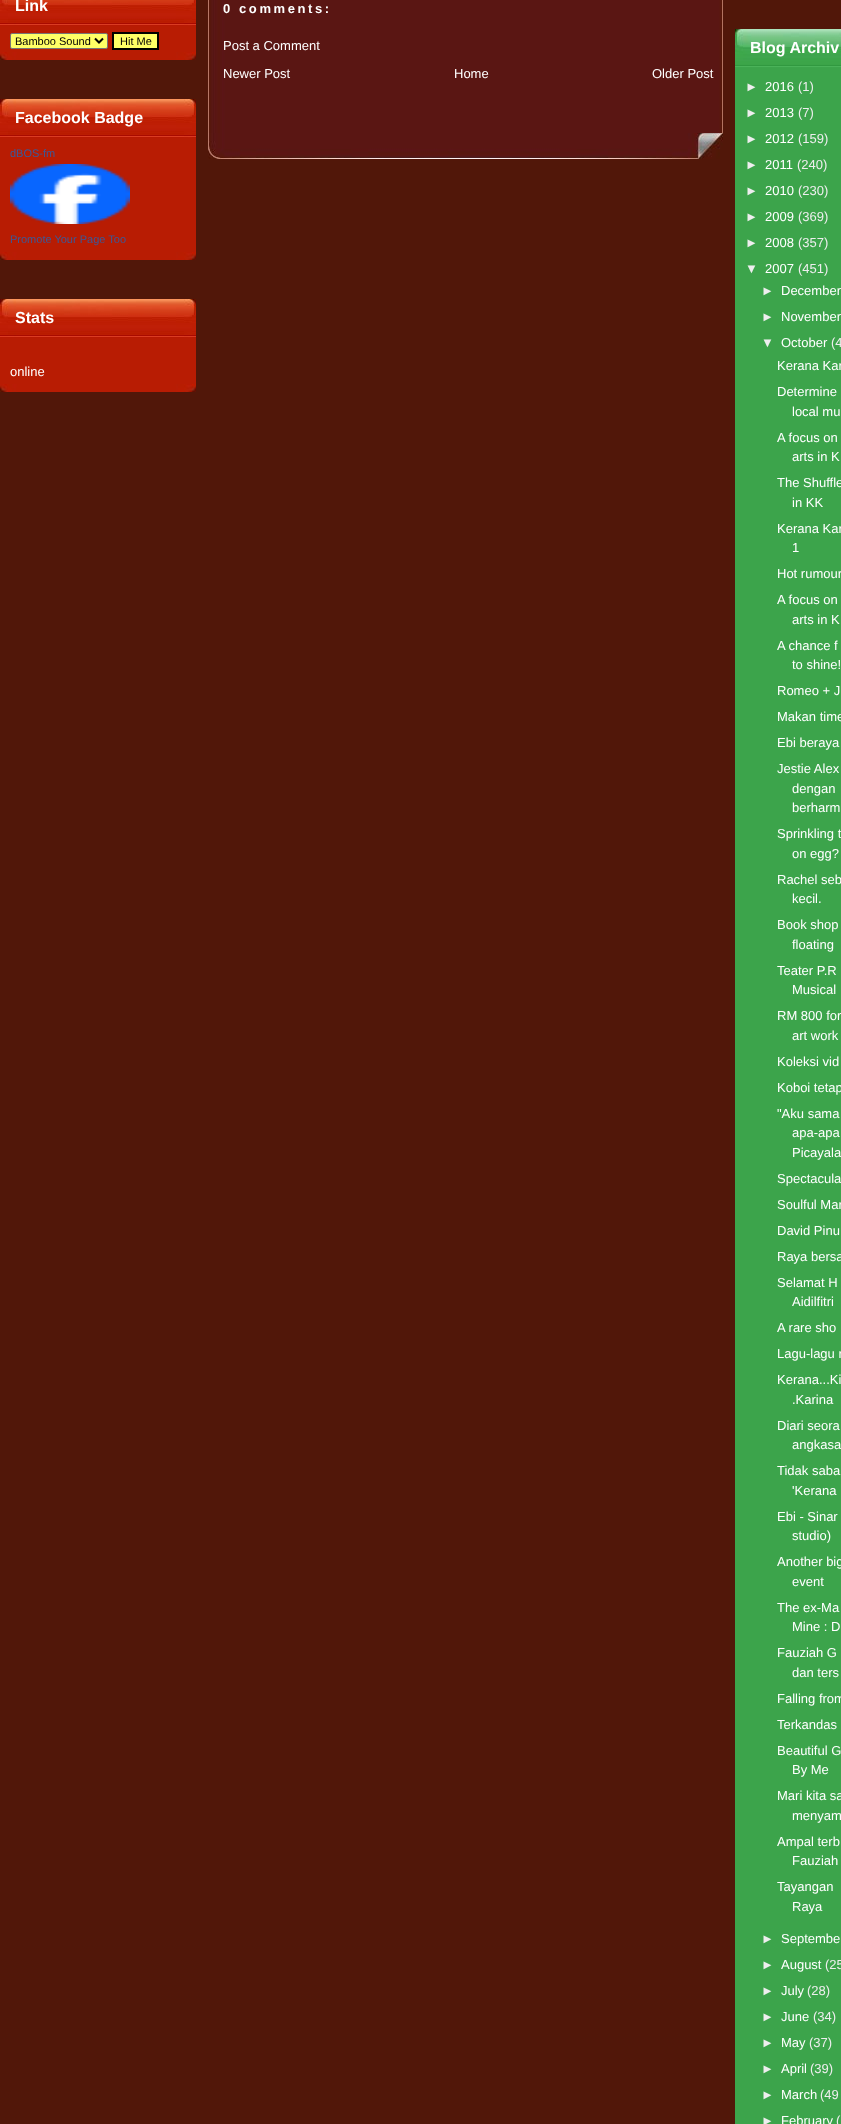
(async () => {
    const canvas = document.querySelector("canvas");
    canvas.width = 841;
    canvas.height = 2124;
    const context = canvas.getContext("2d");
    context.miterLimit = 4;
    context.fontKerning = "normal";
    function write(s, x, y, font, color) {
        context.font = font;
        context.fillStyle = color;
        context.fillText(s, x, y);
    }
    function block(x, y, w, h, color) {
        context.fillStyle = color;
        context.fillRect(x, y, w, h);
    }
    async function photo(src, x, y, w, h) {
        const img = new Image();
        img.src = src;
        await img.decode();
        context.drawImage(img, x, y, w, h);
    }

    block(0, 0, 841, 2124, "rgb(81, 23, 9)");
    await photo("media/1.png", 0, 0, 196, 26);
    write("Link", 15, 11, "bold 16px Liberation Sans", "rgb(255, 255, 255)");
    block(0, 26, 196, 26, "rgb(184, 28, 3)");
    await photo("media/2.png", 0, 52, 196, 8);
    context.fillStyle = "rgb(255, 255, 102)";
    context.beginPath();
    context.roundRect(10.5, 33.5, 97, 15, 1.5);
    context.fill();
    context.strokeStyle = "rgb(118, 118, 118)";
    context.stroke();
    context.beginPath();
    context.moveTo(95, 38.5);
    context.lineTo(99, 42.5);
    context.lineTo(103, 38.5);
    context.strokeStyle = "rgb(0, 0, 0)";
    context.lineWidth = 2;
    context.stroke();
    write("Bamboo Sound", 15, 45, "11px Liberation Sans", "rgb(0, 0, 0)");
    context.fillStyle = "rgb(255, 255, 102)";
    context.beginPath();
    context.rect(113, 33, 45, 16);
    context.fill();
    context.stroke();
    write("Hit Me", 120, 45, "11px Liberation Sans", "rgb(0, 0, 0)");
    await photo("media/3.png", 0, 99, 196, 39);
    write("Facebook Badge", 15, 123, "bold 16px Liberation Sans", "rgb(255, 255, 255)");
    block(0, 138, 196, 114, "rgb(184, 28, 3)");
    await photo("media/2.png", 0, 252, 196, 8);
    write("dBOS-fm", 10, 157, "11px Liberation Sans", "rgb(59, 89, 152)");
    await photo("media/4.png", 10, 164, 120, 60);
    write("Promote Your Page Too", 10, 243, "11px Liberation Sans", "rgb(59, 89, 152)");
    await photo("media/3.png", 0, 299, 196, 39);
    write("Stats", 15, 323, "bold 16px Liberation Sans", "rgb(255, 255, 255)");
    block(0, 338, 196, 46, "rgb(184, 28, 3)");
    await photo("media/2.png", 0, 384, 196, 8);
    write("online", 10, 376, "13px Liberation Sans", "rgb(255, 255, 255)");
    await photo("media/5.png", 208, 0, 515, 133);
    context.letterSpacing = "2.6px";
    write("0 comments:", 223, 13, "bold 13px Liberation Sans", "rgb(255, 255, 255)");
    context.letterSpacing = "0px";
    write("Post a Comment", 223, 50, "13px Liberation Sans", "rgb(255, 255, 255)");
    write("Newer Post", 223, 78, "13px Liberation Sans", "rgb(255, 255, 255)");
    write("Home", 454, 78, "13px Liberation Sans", "rgb(255, 255, 255)");
    write("Older Post", 652, 78, "13px Liberation Sans", "rgb(255, 255, 255)");
    await photo("media/6.png", 208, 133, 515, 26);
    await photo("media/7.png", 735, 29, 106, 39);
    write("Blog Archiv", 750, 53, "bold 16px Liberation Sans", "rgb(255, 255, 255)");
    block(735, 68, 106, 2056, "rgb(60, 164, 75)");
    write("►", 745, 91, "13px Liberation Sans", "rgb(238, 238, 238)");
    write("2016", 765, 91, "13px Liberation Sans", "rgb(255, 255, 255)");
    write("(1)", 798, 91, "13px Liberation Sans", "rgb(238, 238, 238)");
    write("►", 745, 117, "13px Liberation Sans", "rgb(238, 238, 238)");
    write("2013", 765, 117, "13px Liberation Sans", "rgb(255, 255, 255)");
    write("(7)", 798, 117, "13px Liberation Sans", "rgb(238, 238, 238)");
    write("►", 745, 143, "13px Liberation Sans", "rgb(238, 238, 238)");
    write("2012", 765, 143, "13px Liberation Sans", "rgb(255, 255, 255)");
    write("(159)", 798, 143, "13px Liberation Sans", "rgb(238, 238, 238)");
    write("►", 745, 169, "13px Liberation Sans", "rgb(238, 238, 238)");
    write("2011", 765, 169, "13px Liberation Sans", "rgb(255, 255, 255)");
    write("(240)", 797, 169, "13px Liberation Sans", "rgb(238, 238, 238)");
    write("►", 745, 195, "13px Liberation Sans", "rgb(238, 238, 238)");
    write("2010", 765, 195, "13px Liberation Sans", "rgb(255, 255, 255)");
    write("(230)", 798, 195, "13px Liberation Sans", "rgb(238, 238, 238)");
    write("►", 745, 221, "13px Liberation Sans", "rgb(238, 238, 238)");
    write("2009", 765, 221, "13px Liberation Sans", "rgb(255, 255, 255)");
    write("(369)", 798, 221, "13px Liberation Sans", "rgb(238, 238, 238)");
    write("►", 745, 247, "13px Liberation Sans", "rgb(238, 238, 238)");
    write("2008", 765, 247, "13px Liberation Sans", "rgb(255, 255, 255)");
    write("(357)", 798, 247, "13px Liberation Sans", "rgb(238, 238, 238)");
    write("▼", 745, 273, "13px Liberation Sans", "rgb(238, 238, 238)");
    write("2007", 765, 273, "13px Liberation Sans", "rgb(255, 255, 255)");
    write("(451)", 798, 273, "13px Liberation Sans", "rgb(238, 238, 238)");
    write("►", 761, 295, "13px Liberation Sans", "rgb(238, 238, 238)");
    write("December", 781, 295, "13px Liberation Sans", "rgb(255, 255, 255)");
    write("►", 761, 321, "13px Liberation Sans", "rgb(238, 238, 238)");
    write("November", 781, 321, "13px Liberation Sans", "rgb(255, 255, 255)");
    write("▼", 761, 347, "13px Liberation Sans", "rgb(238, 238, 238)");
    write("October", 781, 347, "13px Liberation Sans", "rgb(255, 255, 255)");
    write("(4", 831, 347, "13px Liberation Sans", "rgb(238, 238, 238)");
    write("Kerana Kar", 777, 370, "13px Liberation Sans", "rgb(255, 255, 255)");
    write("Determine", 777, 396, "13px Liberation Sans", "rgb(255, 255, 255)");
    write("local mu", 792, 416, "13px Liberation Sans", "rgb(255, 255, 255)");
    write("A focus on", 777, 442, "13px Liberation Sans", "rgb(255, 255, 255)");
    write("arts in K", 792, 461, "13px Liberation Sans", "rgb(255, 255, 255)");
    write("The Shuffle", 777, 487, "13px Liberation Sans", "rgb(255, 255, 255)");
    write("in KK", 792, 507, "13px Liberation Sans", "rgb(255, 255, 255)");
    write("Kerana Kar", 777, 533, "13px Liberation Sans", "rgb(255, 255, 255)");
    write("1", 792, 552, "13px Liberation Sans", "rgb(255, 255, 255)");
    write("Hot rumour", 777, 578, "13px Liberation Sans", "rgb(255, 255, 255)");
    write("A focus on", 777, 604, "13px Liberation Sans", "rgb(255, 255, 255)");
    write("arts in K", 792, 624, "13px Liberation Sans", "rgb(255, 255, 255)");
    write("A chance f", 777, 650, "13px Liberation Sans", "rgb(255, 255, 255)");
    write("to shine!", 792, 669, "13px Liberation Sans", "rgb(255, 255, 255)");
    write("Romeo + J", 777, 695, "13px Liberation Sans", "rgb(255, 255, 255)");
    write("Makan time", 777, 721, "13px Liberation Sans", "rgb(255, 255, 255)");
    write("Ebi beraya", 777, 747, "13px Liberation Sans", "rgb(255, 255, 255)");
    write("Jestie Alex", 777, 773, "13px Liberation Sans", "rgb(255, 255, 255)");
    write("dengan", 792, 793, "13px Liberation Sans", "rgb(255, 255, 255)");
    write("berharm", 792, 812, "13px Liberation Sans", "rgb(255, 255, 255)");
    write("Sprinkling t", 777, 838, "13px Liberation Sans", "rgb(255, 255, 255)");
    write("on egg?", 792, 858, "13px Liberation Sans", "rgb(255, 255, 255)");
    write("Rachel seb", 777, 884, "13px Liberation Sans", "rgb(255, 255, 255)");
    write("kecil.", 792, 903, "13px Liberation Sans", "rgb(255, 255, 255)");
    write("Book shop", 777, 929, "13px Liberation Sans", "rgb(255, 255, 255)");
    write("floating", 792, 949, "13px Liberation Sans", "rgb(255, 255, 255)");
    write("Teater P.R", 777, 975, "13px Liberation Sans", "rgb(255, 255, 255)");
    write("Musical", 792, 994, "13px Liberation Sans", "rgb(255, 255, 255)");
    write("RM 800 for", 777, 1020, "13px Liberation Sans", "rgb(255, 255, 255)");
    write("art work", 792, 1040, "13px Liberation Sans", "rgb(255, 255, 255)");
    write("Koleksi vid", 777, 1066, "13px Liberation Sans", "rgb(255, 255, 255)");
    write("Koboi tetap", 777, 1092, "13px Liberation Sans", "rgb(255, 255, 255)");
    write("\"Aku sama", 777, 1118, "13px Liberation Sans", "rgb(255, 255, 255)");
    write("apa-apa", 792, 1137, "13px Liberation Sans", "rgb(255, 255, 255)");
    write("Picayala", 792, 1157, "13px Liberation Sans", "rgb(255, 255, 255)");
    write("Spectacula", 777, 1183, "13px Liberation Sans", "rgb(255, 255, 255)");
    write("Soulful Mar", 777, 1209, "13px Liberation Sans", "rgb(255, 255, 255)");
    write("David Pinu", 777, 1235, "13px Liberation Sans", "rgb(255, 255, 255)");
    write("Raya bersa", 777, 1261, "13px Liberation Sans", "rgb(255, 255, 255)");
    write("Selamat H", 777, 1287, "13px Liberation Sans", "rgb(255, 255, 255)");
    write("Aidilfitri", 792, 1306, "13px Liberation Sans", "rgb(255, 255, 255)");
    write("A rare sho", 777, 1332, "13px Liberation Sans", "rgb(255, 255, 255)");
    write("Lagu-lagu r", 777, 1358, "13px Liberation Sans", "rgb(255, 255, 255)");
    write("Kerana...Ki", 777, 1384, "13px Liberation Sans", "rgb(255, 255, 255)");
    write(".Karina", 792, 1404, "13px Liberation Sans", "rgb(255, 255, 255)");
    write("Diari seora", 777, 1430, "13px Liberation Sans", "rgb(255, 255, 255)");
    write("angkasa", 792, 1449, "13px Liberation Sans", "rgb(255, 255, 255)");
    write("Tidak saba", 777, 1475, "13px Liberation Sans", "rgb(255, 255, 255)");
    write("'Kerana", 792, 1495, "13px Liberation Sans", "rgb(255, 255, 255)");
    write("Ebi - Sinar", 777, 1521, "13px Liberation Sans", "rgb(255, 255, 255)");
    write("studio)", 792, 1540, "13px Liberation Sans", "rgb(255, 255, 255)");
    write("Another big", 777, 1566, "13px Liberation Sans", "rgb(255, 255, 255)");
    write("event", 792, 1586, "13px Liberation Sans", "rgb(255, 255, 255)");
    write("The ex-Ma", 777, 1612, "13px Liberation Sans", "rgb(255, 255, 255)");
    write("Mine : D", 792, 1631, "13px Liberation Sans", "rgb(255, 255, 255)");
    write("Fauziah G", 777, 1657, "13px Liberation Sans", "rgb(255, 255, 255)");
    write("dan ters", 792, 1677, "13px Liberation Sans", "rgb(255, 255, 255)");
    write("Falling from", 777, 1703, "13px Liberation Sans", "rgb(255, 255, 255)");
    write("Terkandas", 777, 1729, "13px Liberation Sans", "rgb(255, 255, 255)");
    write("Beautiful G", 777, 1755, "13px Liberation Sans", "rgb(255, 255, 255)");
    write("By Me", 792, 1774, "13px Liberation Sans", "rgb(255, 255, 255)");
    write("Mari kita sa", 777, 1800, "13px Liberation Sans", "rgb(255, 255, 255)");
    write("menyam", 792, 1820, "13px Liberation Sans", "rgb(255, 255, 255)");
    write("Ampal terb", 777, 1846, "13px Liberation Sans", "rgb(255, 255, 255)");
    write("Fauziah", 792, 1865, "13px Liberation Sans", "rgb(255, 255, 255)");
    write("Tayangan", 777, 1891, "13px Liberation Sans", "rgb(255, 255, 255)");
    write("Raya", 792, 1911, "13px Liberation Sans", "rgb(255, 255, 255)");
    write("►", 761, 1943, "13px Liberation Sans", "rgb(238, 238, 238)");
    write("Septembe", 781, 1943, "13px Liberation Sans", "rgb(255, 255, 255)");
    write("►", 761, 1969, "13px Liberation Sans", "rgb(238, 238, 238)");
    write("August", 781, 1969, "13px Liberation Sans", "rgb(255, 255, 255)");
    write("(25", 825, 1969, "13px Liberation Sans", "rgb(238, 238, 238)");
    write("►", 761, 1995, "13px Liberation Sans", "rgb(238, 238, 238)");
    write("July", 781, 1995, "13px Liberation Sans", "rgb(255, 255, 255)");
    write("(28)", 807, 1995, "13px Liberation Sans", "rgb(238, 238, 238)");
    write("►", 761, 2021, "13px Liberation Sans", "rgb(238, 238, 238)");
    write("June", 781, 2021, "13px Liberation Sans", "rgb(255, 255, 255)");
    write("(34)", 813, 2021, "13px Liberation Sans", "rgb(238, 238, 238)");
    write("►", 761, 2047, "13px Liberation Sans", "rgb(238, 238, 238)");
    write("May", 781, 2047, "13px Liberation Sans", "rgb(255, 255, 255)");
    write("(37)", 809, 2047, "13px Liberation Sans", "rgb(238, 238, 238)");
    write("►", 761, 2073, "13px Liberation Sans", "rgb(238, 238, 238)");
    write("April", 781, 2073, "13px Liberation Sans", "rgb(255, 255, 255)");
    write("(39)", 810, 2073, "13px Liberation Sans", "rgb(238, 238, 238)");
    write("►", 761, 2099, "13px Liberation Sans", "rgb(238, 238, 238)");
    write("March", 781, 2099, "13px Liberation Sans", "rgb(255, 255, 255)");
    write("(49", 820, 2099, "13px Liberation Sans", "rgb(238, 238, 238)");
    write("►", 761, 2125, "13px Liberation Sans", "rgb(238, 238, 238)");
    write("February", 781, 2125, "13px Liberation Sans", "rgb(255, 255, 255)");
    write("(", 836, 2125, "13px Liberation Sans", "rgb(238, 238, 238)");
})();
